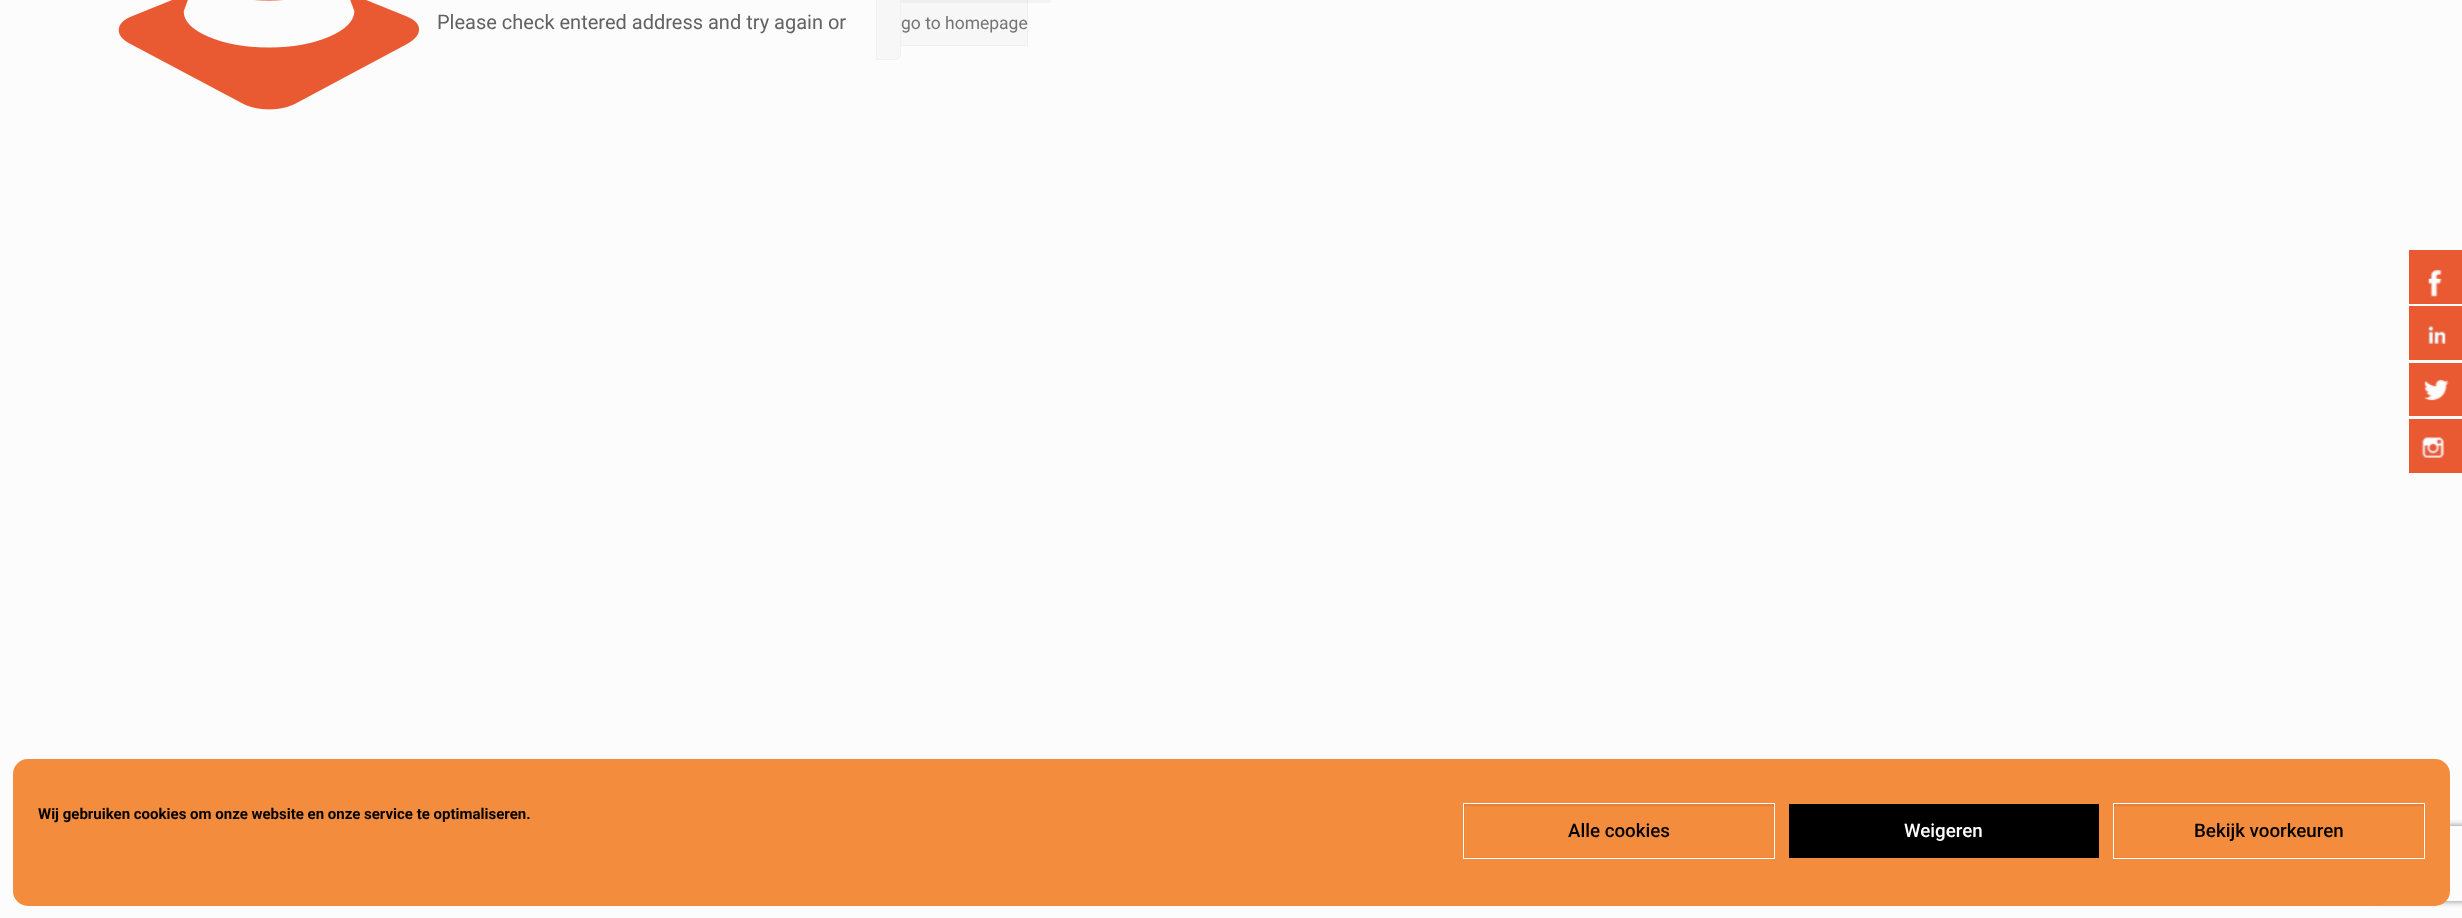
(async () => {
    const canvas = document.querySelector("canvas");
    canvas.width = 2462;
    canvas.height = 918;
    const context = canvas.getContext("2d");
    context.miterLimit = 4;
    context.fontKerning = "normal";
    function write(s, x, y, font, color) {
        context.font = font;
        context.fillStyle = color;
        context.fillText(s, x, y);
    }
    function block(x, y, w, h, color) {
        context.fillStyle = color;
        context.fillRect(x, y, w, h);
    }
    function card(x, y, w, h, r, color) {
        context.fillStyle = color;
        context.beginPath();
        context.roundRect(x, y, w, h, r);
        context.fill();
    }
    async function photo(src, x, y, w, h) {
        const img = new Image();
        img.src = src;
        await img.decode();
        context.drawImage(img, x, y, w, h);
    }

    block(0, 0, 2462, 918, "rgb(252, 252, 252)");
    await photo("media/1.png", 118, 0, 302, 110);
    write("Please check entered address and try again or", 437, 29, "20px Roboto", "rgb(98, 98, 98)");
    block(901, 0, 127, 46, "rgb(247, 247, 247)");
    block(901, 0, 150, 3, "rgba(0, 0, 0, 0.03)");
    context.strokeStyle = "rgba(0, 0, 0, 0.03)";
    context.strokeRect(876.5, -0.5, 151, 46);
    write("go to homepage", 901, 29, "17.5px Roboto", "rgb(116, 116, 116)");
    context.fillStyle = "rgb(247, 247, 247)";
    context.beginPath();
    context.moveTo(876.5, -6.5);
    context.lineTo(895, -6.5);
    context.bezierCurveTo(898, -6.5, 900.5, -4, 900.5, -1);
    context.lineTo(900.5, 54);
    context.bezierCurveTo(900.5, 57, 898, 59.5, 895, 59.5);
    context.lineTo(876.5, 59.5);
    context.closePath();
    context.fill();
    context.strokeStyle = "rgb(240, 240, 240)";
    context.stroke();
    block(2409, 250, 53, 54, "rgb(234, 90, 50)");
    await photo("media/2.png", 2428, 269, 14, 28);
    block(2409, 306, 53, 54, "rgb(234, 90, 50)");
    await photo("media/3.png", 2428, 326, 18, 18);
    block(2409, 363, 53, 53, "rgb(234, 90, 50)");
    await photo("media/4.png", 2424, 379, 25, 22);
    block(2409, 419, 53, 54, "rgb(234, 90, 50)");
    await photo("media/5.png", 2421, 437, 24, 21);
    context.save();
    context.beginPath();
    context.moveTo(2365, 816);
    context.lineTo(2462, 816);
    context.lineTo(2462, 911);
    context.lineTo(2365, 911);
    context.closePath();
    context.moveTo(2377.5, 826);
    context.lineTo(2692.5, 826);
    context.bezierCurveTo(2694, 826, 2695, 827, 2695, 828.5);
    context.lineTo(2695, 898.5);
    context.bezierCurveTo(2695, 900, 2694, 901, 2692.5, 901);
    context.lineTo(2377.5, 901);
    context.bezierCurveTo(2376, 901, 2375, 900, 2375, 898.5);
    context.lineTo(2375, 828.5);
    context.bezierCurveTo(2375, 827, 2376, 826, 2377.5, 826);
    context.closePath();
    context.clip("evenodd");
    context.fillStyle = "rgb(128, 128, 128)";
    context.filter = "blur(3px)";
    context.beginPath();
    context.roundRect(2375, 826, 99, 75, 2.5);
    context.fill();
    context.filter = "none";
    context.restore();
    card(13, 759, 2437, 147, 15, "rgb(244, 140, 61)");
    write("Wij gebruiken cookies om onze website en onze service te optimaliseren.", 38, 819, "bold 15px Roboto", "rgb(0, 0, 0)");
    await photo("media/6.png", 1464, 804, 310, 3);
    context.strokeStyle = "rgba(0, 0, 0, 0.03)";
    context.strokeRect(1464.5, 804.5, 309, 53);
    context.strokeStyle = "rgb(255, 255, 255)";
    context.strokeRect(1463.5, 803.5, 311, 55);
    write("Alle cookies", 1568, 837, "500 18.75px Roboto", "rgb(0, 0, 0)");
    block(1789, 804, 310, 54, "rgb(0, 0, 0)");
    block(1787, 804, 1, 2, "rgb(237, 136, 59)");
    write("Weigeren", 1904, 837, "500 18.75px Roboto", "rgb(255, 255, 255)");
    await photo("media/6.png", 2114, 804, 310, 3);
    context.strokeStyle = "rgba(0, 0, 0, 0.03)";
    context.strokeRect(2114.5, 804.5, 309, 53);
    context.strokeStyle = "rgb(255, 255, 255)";
    context.strokeRect(2113.5, 803.5, 311, 55);
    write("Bekijk voorkeuren", 2194, 837, "500 18.75px Roboto", "rgb(0, 0, 0)");
})();
